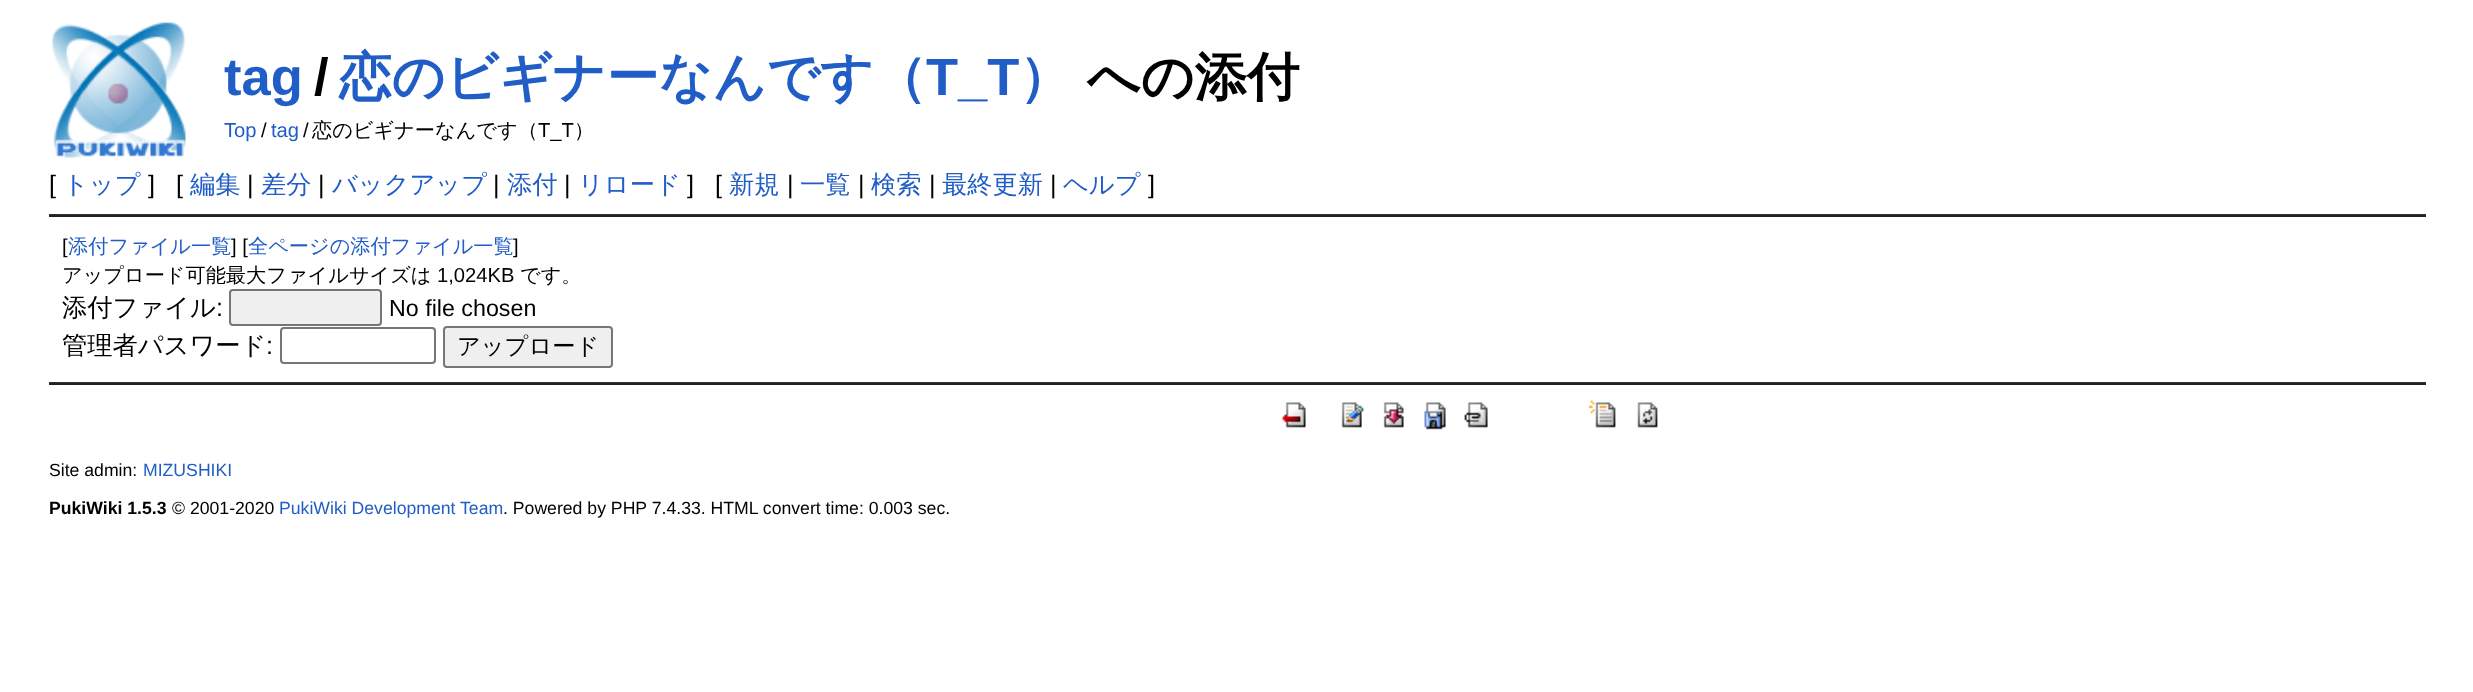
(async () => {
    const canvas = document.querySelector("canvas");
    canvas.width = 2473;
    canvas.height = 692;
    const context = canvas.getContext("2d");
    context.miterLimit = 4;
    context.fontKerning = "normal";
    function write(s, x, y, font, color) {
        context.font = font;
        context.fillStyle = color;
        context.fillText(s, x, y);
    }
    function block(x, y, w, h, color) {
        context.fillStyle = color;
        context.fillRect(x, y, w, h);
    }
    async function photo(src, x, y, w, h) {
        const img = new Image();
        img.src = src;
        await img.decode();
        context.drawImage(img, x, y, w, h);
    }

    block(0, 0, 2473, 692, "rgb(255, 255, 255)");
    await photo("media/1.png", 52, 22, 134, 136);
    write("tag", 224, 95, "bold 52.5px Liberation Sans", "rgb(33, 93, 198)");
    write("/", 314, 95, "bold 52.5px Liberation Sans", "rgb(0, 0, 0)");
    write("恋のビギナーなんです（", 339, 95, "bold 52.5px WenQuanYi Zen Hei", "rgb(33, 93, 198)");
    write("T_T", 926, 95, "bold 52.5px Liberation Sans", "rgb(33, 93, 198)");
    write("）", 1019, 95, "bold 52.5px WenQuanYi Zen Hei", "rgb(33, 93, 198)");
    write("への添付", 1087, 95, "bold 52.5px WenQuanYi Zen Hei", "rgb(0, 0, 0)");
    write("Top", 224, 137, "20.2px Liberation Sans", "rgb(33, 93, 198)");
    write("/", 261, 137, "20.2px Liberation Sans", "rgb(0, 0, 0)");
    write("tag", 271, 137, "20.2px Liberation Sans", "rgb(33, 93, 198)");
    write("/", 303, 137, "20.2px Liberation Sans", "rgb(0, 0, 0)");
    write("恋のビギナーなんです（", 312, 137, "500 20.2px WenQuanYi Zen Hei", "rgb(0, 0, 0)");
    write("T_T", 538, 137, "20.2px Liberation Sans", "rgb(0, 0, 0)");
    write("）", 574, 137, "500 20.2px WenQuanYi Zen Hei", "rgb(0, 0, 0)");
    write("[", 49, 193, "25.25px Liberation Sans", "rgb(0, 0, 0)");
    write("トップ", 63, 193, "500 25.25px WenQuanYi Zen Hei", "rgb(33, 93, 198)");
    write("]", 148, 193, "25.25px Liberation Sans", "rgb(0, 0, 0)");
    write("[", 176, 193, "25.25px Liberation Sans", "rgb(0, 0, 0)");
    write("編集", 190, 193, "500 25.25px WenQuanYi Zen Hei", "rgb(33, 93, 198)");
    write("|", 247, 193, "25.25px Liberation Sans", "rgb(0, 0, 0)");
    write("差分", 261, 193, "500 25.25px WenQuanYi Zen Hei", "rgb(33, 93, 198)");
    write("|", 318, 193, "25.25px Liberation Sans", "rgb(0, 0, 0)");
    write("バックアップ", 332, 193, "500 25.25px WenQuanYi Zen Hei", "rgb(33, 93, 198)");
    write("|", 493, 193, "25.25px Liberation Sans", "rgb(0, 0, 0)");
    write("添付", 507, 193, "500 25.25px WenQuanYi Zen Hei", "rgb(33, 93, 198)");
    write("|", 564, 193, "25.25px Liberation Sans", "rgb(0, 0, 0)");
    write("リロード", 578, 193, "500 25.25px WenQuanYi Zen Hei", "rgb(33, 93, 198)");
    write("]", 687, 193, "25.25px Liberation Sans", "rgb(0, 0, 0)");
    write("[", 715, 193, "25.25px Liberation Sans", "rgb(0, 0, 0)");
    write("新規", 729, 193, "500 25.25px WenQuanYi Zen Hei", "rgb(33, 93, 198)");
    write("|", 787, 193, "25.25px Liberation Sans", "rgb(0, 0, 0)");
    write("一覧", 800, 193, "500 25.25px WenQuanYi Zen Hei", "rgb(33, 93, 198)");
    write("|", 858, 193, "25.25px Liberation Sans", "rgb(0, 0, 0)");
    write("検索", 871, 193, "500 25.25px WenQuanYi Zen Hei", "rgb(33, 93, 198)");
    write("|", 929, 193, "25.25px Liberation Sans", "rgb(0, 0, 0)");
    write("最終更新", 942, 193, "500 25.25px WenQuanYi Zen Hei", "rgb(33, 93, 198)");
    write("|", 1050, 193, "25.25px Liberation Sans", "rgb(0, 0, 0)");
    write("ヘルプ", 1063, 193, "500 25.25px WenQuanYi Zen Hei", "rgb(33, 93, 198)");
    write("]", 1148, 193, "25.25px Liberation Sans", "rgb(0, 0, 0)");
    block(49, 214, 2377, 1, "rgb(51, 51, 51)");
    block(49, 215, 2377, 2, "rgb(34, 34, 34)");
    write("[", 62, 253, "20.2px Liberation Sans", "rgb(0, 0, 0)");
    write("添付ファイル一覧", 68, 253, "500 20.2px WenQuanYi Zen Hei", "rgb(33, 93, 198)");
    write("] [", 231, 253, "20.2px Liberation Sans", "rgb(0, 0, 0)");
    write("全ページの添付ファイル一覧", 248, 253, "500 20.2px WenQuanYi Zen Hei", "rgb(33, 93, 198)");
    write("]", 513, 253, "20.2px Liberation Sans", "rgb(0, 0, 0)");
    write("アップロード可能最大ファイルサイズは", 62, 282, "500 20.2px WenQuanYi Zen Hei", "rgb(0, 0, 0)");
    write("1,024KB", 437, 282, "20.2px Liberation Sans", "rgb(0, 0, 0)");
    write("です。", 520, 282, "500 20.2px WenQuanYi Zen Hei", "rgb(0, 0, 0)");
    write("添付ファイル", 62, 316, "500 25.25px WenQuanYi Zen Hei", "rgb(0, 0, 0)");
    write(":", 216, 316, "25.25px Liberation Sans", "rgb(0, 0, 0)");
    context.fillStyle = "rgb(239, 239, 239)";
    context.beginPath();
    context.roundRect(230, 290, 151, 35, 3);
    context.fill();
    context.strokeStyle = "rgb(118, 118, 118)";
    context.lineWidth = 2;
    context.stroke();
    write("No file chosen", 389, 316, "23.25px Liberation Sans", "rgb(0, 0, 0)");
    write("管理者パスワード", 62, 354, "500 25.25px WenQuanYi Zen Hei", "rgb(0, 0, 0)");
    write(":", 266, 354, "25.25px Liberation Sans", "rgb(0, 0, 0)");
    context.beginPath();
    context.roundRect(281, 328, 154, 35, 3);
    context.stroke();
    context.fillStyle = "rgb(239, 239, 239)";
    context.beginPath();
    context.roundRect(444, 327, 168, 40, 3);
    context.fill();
    context.stroke();
    write("アップロード", 457, 354, "500 23.25px WenQuanYi Zen Hei", "rgb(0, 0, 0)");
    block(49, 382, 2377, 1, "rgb(51, 51, 51)");
    block(49, 383, 2377, 2, "rgb(34, 34, 34)");
    await photo("media/2.png", 1282, 402, 24, 26);
    await photo("media/3.png", 1341, 402, 23, 26);
    await photo("media/4.png", 1383, 402, 21, 26);
    await photo("media/5.png", 1424, 402, 22, 28);
    await photo("media/6.png", 1464, 402, 24, 26);
    await photo("media/7.png", 1589, 400, 27, 28);
    await photo("media/8.png", 1637, 402, 21, 26);
    write("Site admin:", 49, 476, "17.65px Liberation Sans", "rgb(0, 0, 0)");
    write("MIZUSHIKI", 143, 476, "17.65px Liberation Sans", "rgb(33, 93, 198)");
    write("PukiWiki 1.5.3", 49, 514, "bold 17.65px Liberation Sans", "rgb(0, 0, 0)");
    write("© 2001-2020", 172, 514, "17.65px Liberation Sans", "rgb(0, 0, 0)");
    write("PukiWiki Development Team", 279, 514, "17.65px Liberation Sans", "rgb(33, 93, 198)");
    write(". Powered by PHP 7.4.33. HTML convert time: 0.003 sec.", 503, 514, "17.65px Liberation Sans", "rgb(0, 0, 0)");
})();
